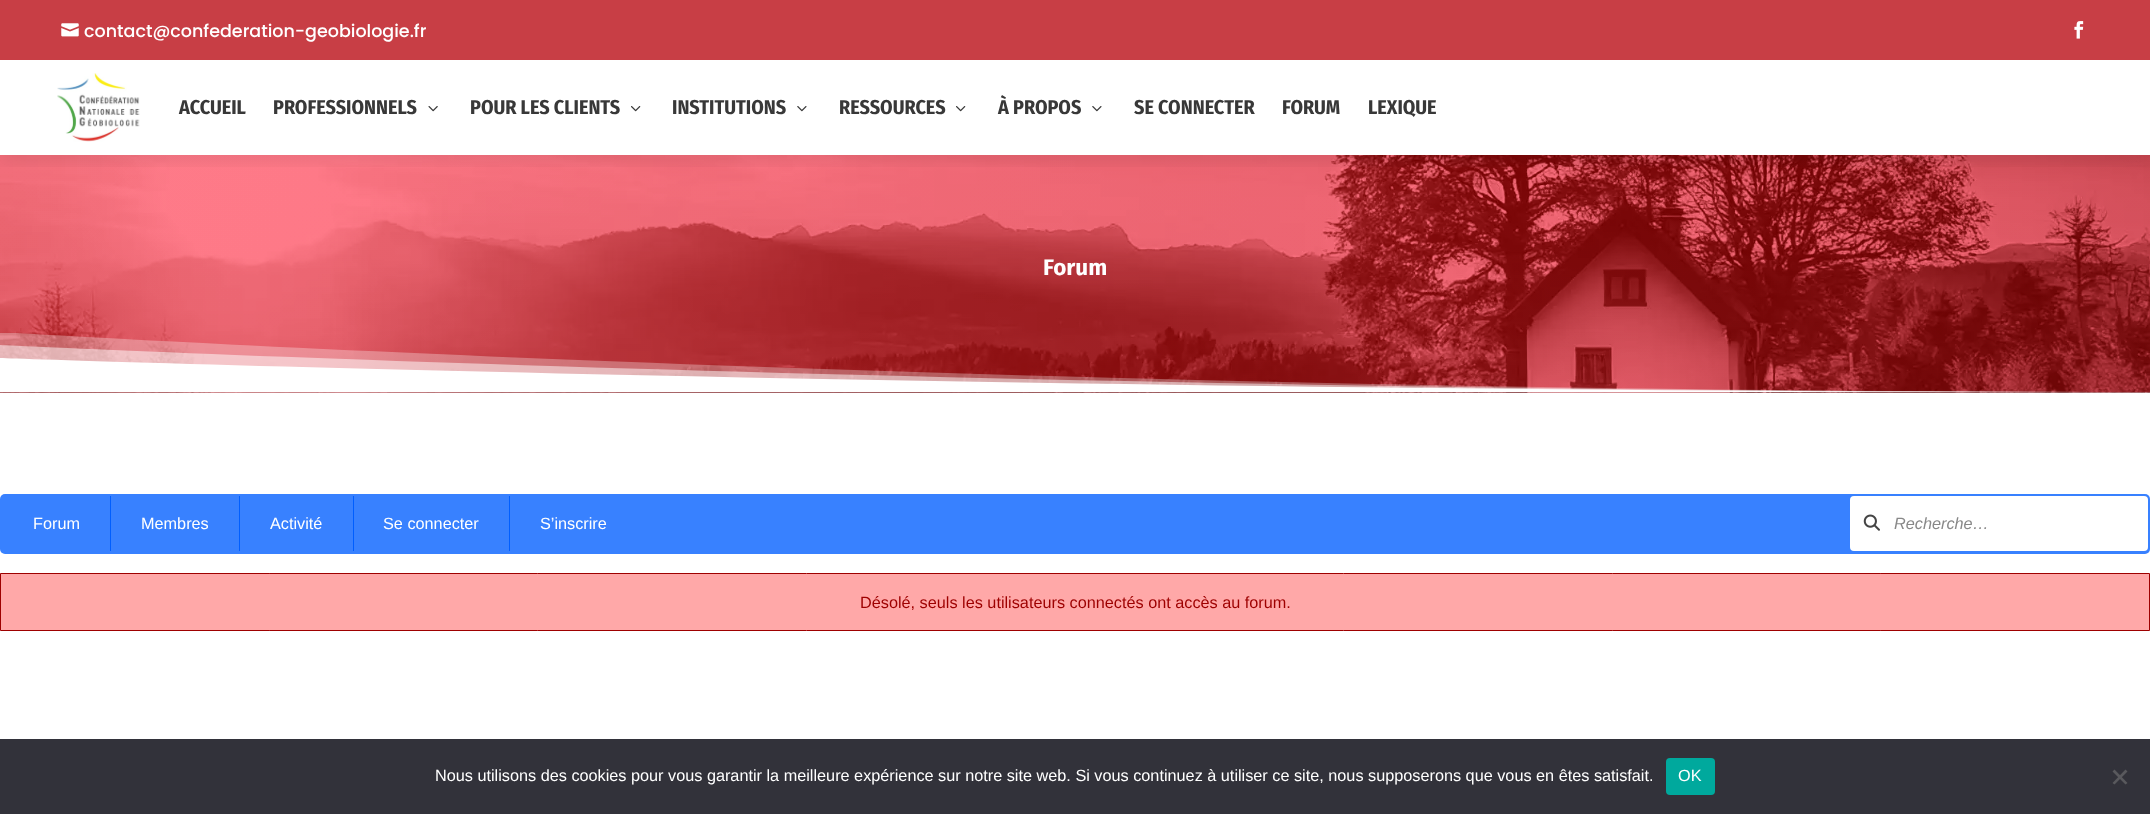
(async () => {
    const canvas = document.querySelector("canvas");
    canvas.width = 2150;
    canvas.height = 814;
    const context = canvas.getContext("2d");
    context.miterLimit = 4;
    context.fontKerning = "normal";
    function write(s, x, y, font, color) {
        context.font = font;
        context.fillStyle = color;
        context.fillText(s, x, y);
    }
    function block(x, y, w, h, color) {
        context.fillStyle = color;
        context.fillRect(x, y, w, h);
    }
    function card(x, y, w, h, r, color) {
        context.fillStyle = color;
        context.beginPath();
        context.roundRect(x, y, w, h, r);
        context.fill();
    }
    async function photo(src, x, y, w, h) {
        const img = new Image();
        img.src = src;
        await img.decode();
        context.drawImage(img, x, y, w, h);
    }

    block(0, 0, 2150, 814, "rgb(255, 255, 255)");
    await photo("media/7.png", 0, 155, 2150, 238);
    context.save();
    context.beginPath();
    context.rect(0, 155, 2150, 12);
    context.clip();
    context.fillStyle = "rgba(0, 0, 0, 0.1)";
    context.filter = "blur(11px)";
    context.beginPath();
    context.rect(0, 3, 2150, 155);
    context.fill();
    context.filter = "none";
    context.restore();
    block(0, 0, 2150, 60, "rgb(200, 62, 69)");
    await photo("media/1.png", 61, 23, 18, 14);
    write("contact@confederation-geobiologie.fr", 84, 37, "500 17.5px Poppins", "rgb(255, 255, 255)");
    await photo("media/2.png", 2074, 21, 10, 18);
    await photo("media/3.png", 57, 73, 83, 69);
    write("ACCUEIL", 179, 114, "bold 20px Fira Sans Condensed", "rgb(56, 56, 56)");
    write("PROFESSIONNELS", 273, 114, "bold 20px Fira Sans Condensed", "rgb(56, 56, 56)");
    await photo("media/4.png", 428, 106, 10, 6);
    write("POUR LES CLIENTS", 470, 114, "bold 20px Fira Sans Condensed", "rgb(56, 56, 56)");
    await photo("media/5.png", 631, 106, 10, 6);
    write("INSTITUTIONS", 672, 114, "bold 20px Fira Sans Condensed", "rgb(56, 56, 56)");
    await photo("media/6.png", 797, 106, 10, 6);
    write("RESSOURCES", 839, 114, "bold 20px Fira Sans Condensed", "rgb(56, 56, 56)");
    await photo("media/5.png", 956, 106, 10, 6);
    write("À PROPOS", 998, 114, "bold 20px Fira Sans Condensed", "rgb(56, 56, 56)");
    await photo("media/6.png", 1092, 106, 10, 6);
    write("SE CONNECTER", 1134, 114, "bold 20px Fira Sans Condensed", "rgb(56, 56, 56)");
    write("FORUM", 1282, 114, "bold 20px Fira Sans Condensed", "rgb(56, 56, 56)");
    write("LEXIQUE", 1368, 114, "bold 20px Fira Sans Condensed", "rgb(56, 56, 56)");
    write("Forum", 1043, 275, "bold 22.5px Fira Sans", "rgb(255, 255, 255)");
    context.save();
    context.beginPath();
    context.rect(0, 333, 2150, 60);
    context.clip();
    context.fillStyle = "rgba(255, 255, 255, 0.3)";
    context.beginPath();
    context.moveTo(0, 392);
    context.lineTo(2150, 392);
    context.bezierCurveTo(963, 392, 0, 332, 0, 332);
    context.closePath();
    context.fill();
    context.restore();
    context.fillStyle = "rgba(255, 255, 255, 0.5)";
    context.beginPath();
    context.moveTo(0, 392);
    context.lineTo(2150, 392);
    context.bezierCurveTo(963, 392, 0, 345, 0, 345);
    context.closePath();
    context.fill();
    context.fillStyle = "rgb(255, 255, 255)";
    context.beginPath();
    context.moveTo(0, 392);
    context.lineTo(2150, 392);
    context.bezierCurveTo(963, 392, 0, 358, 0, 358);
    context.closePath();
    context.fill();
    card(0, 494, 2150, 60, 5, "rgb(56, 129, 255)");
    write("Forum", 33, 529, "16.25px Liberation Sans", "rgb(255, 255, 255)");
    block(110, 496, 1, 55, "rgb(0, 94, 255)");
    write("Membres", 141, 529, "16.25px Liberation Sans", "rgb(255, 255, 255)");
    block(239, 496, 1, 55, "rgb(0, 94, 255)");
    write("Activité", 270, 529, "16.25px Liberation Sans", "rgb(255, 255, 255)");
    block(353, 496, 1, 55, "rgb(0, 94, 255)");
    write("Se connecter", 383, 529, "16.25px Liberation Sans", "rgb(255, 255, 255)");
    block(509, 496, 1, 55, "rgb(0, 94, 255)");
    write("S’inscrire", 540, 529, "16.25px Liberation Sans", "rgb(255, 255, 255)");
    card(1850, 496, 298, 55, 4, "rgb(255, 255, 255)");
    await photo("media/8.png", 1863, 514, 17, 17);
    write("Recherche…", 1894, 529, "italic 16.25px Liberation Sans", "rgb(136, 136, 136)");
    context.fillStyle = "rgb(255, 168, 168)";
    context.beginPath();
    context.rect(0.5, 573.5, 2149, 57);
    context.fill();
    context.strokeStyle = "rgb(158, 0, 0)";
    context.stroke();
    write("Désolé, seuls les utilisateurs connectés ont accès au forum.", 860, 608, "16.25px Liberation Sans", "rgb(158, 0, 0)");
    block(0, 739, 2150, 75, "rgb(50, 50, 58)");
    write("Nous utilisons des cookies pour vous garantir la meilleure expérience sur notre site web. Si vous continuez à utiliser ce site, nous supposerons que vous en êtes satisfait.", 435, 781, "16.25px Liberation Sans", "rgb(255, 255, 255)");
    card(1666, 758, 49, 37, 4, "rgb(0, 169, 157)");
    write("OK", 1678, 781, "16.25px Liberation Sans", "rgb(255, 255, 255)");
    context.fillStyle = "rgb(89, 89, 93)";
    context.beginPath();
    context.moveTo(2125.5, 769.5);
    context.lineTo(2127.5, 771.5);
    context.lineTo(2114.5, 784.5);
    context.lineTo(2112.5, 783);
    context.closePath();
    context.fill();
    context.beginPath();
    context.moveTo(2112.5, 771.5);
    context.lineTo(2114.5, 769.5);
    context.lineTo(2127.5, 783);
    context.lineTo(2125.5, 784.5);
    context.closePath();
    context.fill();
})();
